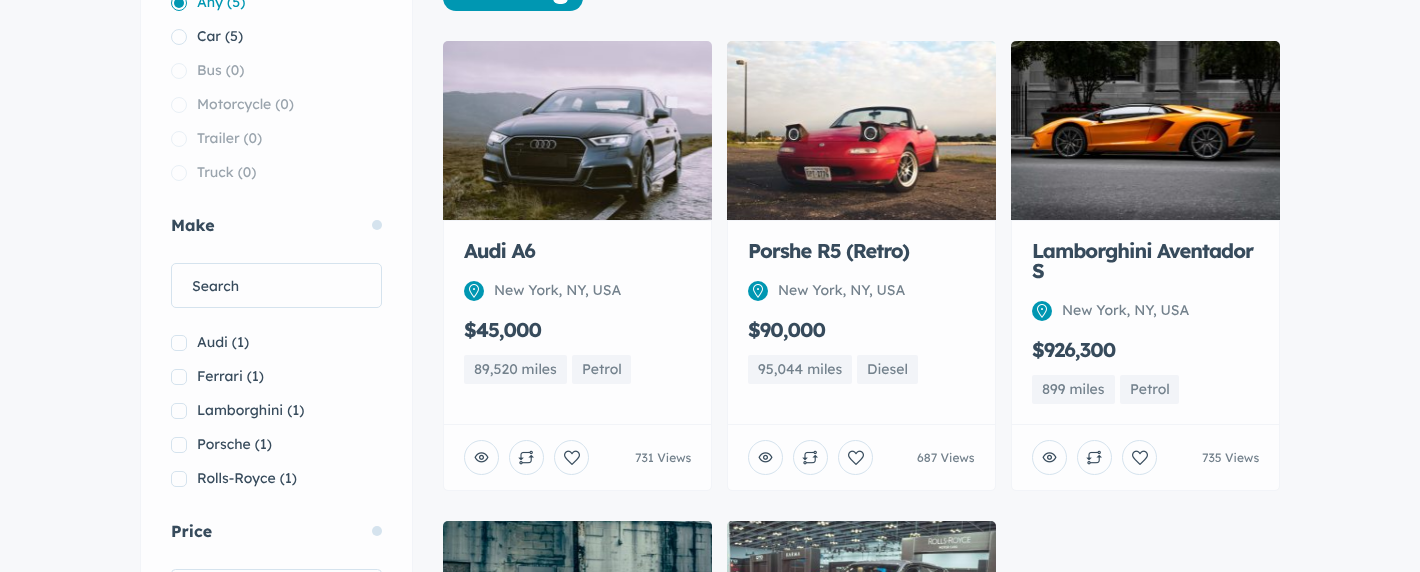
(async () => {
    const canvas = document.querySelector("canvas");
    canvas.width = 1420;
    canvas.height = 572;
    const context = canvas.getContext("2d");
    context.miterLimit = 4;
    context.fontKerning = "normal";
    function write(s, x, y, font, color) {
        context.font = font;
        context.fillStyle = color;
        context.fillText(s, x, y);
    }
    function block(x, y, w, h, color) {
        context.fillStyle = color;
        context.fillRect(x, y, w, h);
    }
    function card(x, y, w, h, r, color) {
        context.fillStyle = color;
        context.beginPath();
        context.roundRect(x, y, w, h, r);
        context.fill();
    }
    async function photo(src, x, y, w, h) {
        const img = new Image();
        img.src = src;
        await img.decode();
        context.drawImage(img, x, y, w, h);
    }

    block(0, 0, 1420, 572, "rgb(247, 248, 250)");
    context.fillStyle = "rgb(253, 253, 254)";
    context.beginPath();
    context.rect(140.5, -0.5, 272, 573);
    context.fill();
    context.strokeStyle = "rgb(242, 244, 248)";
    context.stroke();
    context.beginPath();
    context.arc(179, 3, 7.5, 0, Math.PI * 2);
    context.strokeStyle = "rgb(0, 151, 178)";
    context.stroke();
    context.fillStyle = "rgb(0, 151, 178)";
    context.beginPath();
    context.arc(179, 3, 5, 0, Math.PI * 2);
    context.fill();
    write("Any (5)", 197, 7, "14px Lexend Deca", "rgb(0, 151, 178)");
    context.beginPath();
    context.arc(179, 37, 7.5, 0, Math.PI * 2);
    context.strokeStyle = "rgb(213, 227, 238)";
    context.stroke();
    write("Car (5)", 197, 41, "14px Lexend Deca", "rgb(55, 75, 92)");
    context.beginPath();
    context.arc(179, 71, 7.5, 0, Math.PI * 2);
    context.strokeStyle = "rgb(233, 240, 246)";
    context.stroke();
    write("Bus (0)", 197, 75, "14px Lexend Deca", "rgb(154, 164, 173)");
    context.beginPath();
    context.arc(179, 105, 7.5, 0, Math.PI * 2);
    context.stroke();
    write("Motorcycle (0)", 197, 109, "14px Lexend Deca", "rgb(154, 164, 173)");
    context.beginPath();
    context.arc(179, 139, 7.5, 0, Math.PI * 2);
    context.stroke();
    write("Trailer (0)", 197, 143, "14px Lexend Deca", "rgb(154, 164, 173)");
    context.beginPath();
    context.arc(179, 173, 7.5, 0, Math.PI * 2);
    context.stroke();
    write("Truck (0)", 197, 177, "14px Lexend Deca", "rgb(154, 164, 173)");
    write("Make", 171, 231, "bold 16px Lexend Deca", "rgb(55, 75, 92)");
    context.fillStyle = "rgb(213, 227, 238)";
    context.beginPath();
    context.arc(377, 225, 5, 0, Math.PI * 2);
    context.fill();
    context.beginPath();
    context.roundRect(171.5, 263.5, 210, 44, 4.5);
    context.strokeStyle = "rgb(213, 227, 238)";
    context.stroke();
    write("Search", 192, 291, "14px Lexend Deca", "rgb(55, 75, 92)");
    context.beginPath();
    context.roundRect(171.5, 335.5, 15, 15, 4.5);
    context.stroke();
    write("Audi (1)", 197, 347, "14px Lexend Deca", "rgb(55, 75, 92)");
    context.beginPath();
    context.roundRect(171.5, 369.5, 15, 15, 4.5);
    context.stroke();
    write("Ferrari (1)", 197, 381, "14px Lexend Deca", "rgb(55, 75, 92)");
    context.beginPath();
    context.roundRect(171.5, 403.5, 15, 15, 4.5);
    context.stroke();
    write("Lamborghini (1)", 197, 415, "14px Lexend Deca", "rgb(55, 75, 92)");
    context.beginPath();
    context.roundRect(171.5, 437.5, 15, 15, 4.5);
    context.stroke();
    write("Porsche (1)", 197, 449, "14px Lexend Deca", "rgb(55, 75, 92)");
    context.beginPath();
    context.roundRect(171.5, 471.5, 15, 15, 4.5);
    context.stroke();
    write("Rolls-Royce (1)", 197, 483, "14px Lexend Deca", "rgb(55, 75, 92)");
    write("Price", 171, 537, "bold 16px Lexend Deca", "rgb(55, 75, 92)");
    context.fillStyle = "rgb(213, 227, 238)";
    context.beginPath();
    context.arc(377, 531, 5, 0, Math.PI * 2);
    context.fill();
    context.beginPath();
    context.roundRect(171.5, 569.5, 210, 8, 4.5);
    context.stroke();
    card(443, -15, 140, 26, 15, "rgb(0, 151, 178)");
    card(553, -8, 15, 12, 7.5, "rgb(253, 253, 254)");
    await photo("media/1.png", 443, 41, 269, 179);
    context.beginPath();
    context.roundRect(443.5, 220.5, 268, 270, [0, 0, 4.5, 4.5]);
    context.fill();
    context.strokeStyle = "rgb(242, 244, 248)";
    context.stroke();
    context.letterSpacing = "-1px";
    write("Audi A6", 464, 258, "bold 20px Lexend Deca", "rgb(55, 75, 92)");
    context.fillStyle = "rgb(0, 151, 178)";
    context.beginPath();
    context.arc(474, 291, 10, 0, Math.PI * 2);
    context.fill();
    await photo("media/2.png", 469, 284, 10, 14);
    context.letterSpacing = "0px";
    write("New York, NY, USA", 494, 295, "14px Lexend Deca", "rgb(115, 129, 140)");
    context.letterSpacing = "-1px";
    write("$45,000", 464, 337, "bold 20px Lexend Deca", "rgb(55, 75, 92)");
    card(464, 355, 103, 29, 2, "rgb(242, 244, 248)");
    context.letterSpacing = "0px";
    write("89,520 miles", 474, 374, "14px Lexend Deca", "rgb(115, 129, 140)");
    card(572, 355, 59, 29, 2, "rgb(242, 244, 248)");
    write("Petrol", 582, 374, "14px Lexend Deca", "rgb(115, 129, 140)");
    block(444, 424, 267, 1, "rgb(242, 244, 248)");
    context.beginPath();
    context.arc(481.5, 457.5, 17, 0, Math.PI * 2);
    context.strokeStyle = "rgb(213, 227, 238)";
    context.stroke();
    await photo("media/3.png", 474, 452, 15, 11);
    context.beginPath();
    context.arc(526.5, 457.5, 17, 0, Math.PI * 2);
    context.stroke();
    await photo("media/4.png", 518, 450, 16, 15);
    context.beginPath();
    context.arc(571.5, 457.5, 17, 0, Math.PI * 2);
    context.stroke();
    await photo("media/5.png", 564, 450, 16, 15);
    write("731 Views", 635, 462, "12px Lexend Deca", "rgb(115, 129, 140)");
    await photo("media/6.png", 727, 41, 269, 179);
    context.fillStyle = "rgb(253, 253, 254)";
    context.beginPath();
    context.roundRect(727.5, 220.5, 268, 270, [0, 0, 4.5, 4.5]);
    context.fill();
    context.strokeStyle = "rgb(242, 244, 248)";
    context.stroke();
    context.letterSpacing = "-1px";
    write("Porshe R5 (Retro)", 748, 258, "bold 20px Lexend Deca", "rgb(55, 75, 92)");
    context.fillStyle = "rgb(0, 151, 178)";
    context.beginPath();
    context.arc(758, 291, 10, 0, Math.PI * 2);
    context.fill();
    await photo("media/2.png", 753, 284, 10, 14);
    context.letterSpacing = "0px";
    write("New York, NY, USA", 778, 295, "14px Lexend Deca", "rgb(115, 129, 140)");
    context.letterSpacing = "-1px";
    write("$90,000", 748, 337, "bold 20px Lexend Deca", "rgb(55, 75, 92)");
    card(748, 355, 104, 29, 2, "rgb(242, 244, 248)");
    context.letterSpacing = "0px";
    write("95,044 miles", 758, 374, "14px Lexend Deca", "rgb(115, 129, 140)");
    card(857, 355, 61, 29, 2, "rgb(242, 244, 248)");
    write("Diesel", 867, 374, "14px Lexend Deca", "rgb(115, 129, 140)");
    block(728, 424, 267, 1, "rgb(242, 244, 248)");
    context.beginPath();
    context.arc(765.5, 457.5, 17, 0, Math.PI * 2);
    context.strokeStyle = "rgb(213, 227, 238)";
    context.stroke();
    await photo("media/3.png", 758, 452, 15, 11);
    context.beginPath();
    context.arc(810.5, 457.5, 17, 0, Math.PI * 2);
    context.stroke();
    await photo("media/4.png", 802, 450, 16, 15);
    context.beginPath();
    context.arc(855.5, 457.5, 17, 0, Math.PI * 2);
    context.stroke();
    await photo("media/5.png", 848, 450, 16, 15);
    write("687 Views", 917, 462, "12px Lexend Deca", "rgb(115, 129, 140)");
    await photo("media/7.png", 1011, 41, 269, 179);
    context.fillStyle = "rgb(253, 253, 254)";
    context.beginPath();
    context.roundRect(1011.5, 220.5, 268, 270, [0, 0, 4.5, 4.5]);
    context.fill();
    context.strokeStyle = "rgb(242, 244, 248)";
    context.stroke();
    context.letterSpacing = "-1px";
    write("Lamborghini Aventador", 1032, 258, "bold 20px Lexend Deca", "rgb(55, 75, 92)");
    write("S", 1032, 278, "bold 20px Lexend Deca", "rgb(55, 75, 92)");
    context.fillStyle = "rgb(0, 151, 178)";
    context.beginPath();
    context.arc(1042, 311, 10, 0, Math.PI * 2);
    context.fill();
    await photo("media/2.png", 1037, 304, 10, 14);
    context.letterSpacing = "0px";
    write("New York, NY, USA", 1062, 315, "14px Lexend Deca", "rgb(115, 129, 140)");
    context.letterSpacing = "-1px";
    write("$926,300", 1032, 357, "bold 20px Lexend Deca", "rgb(55, 75, 92)");
    card(1032, 375, 83, 29, 2, "rgb(242, 244, 248)");
    context.letterSpacing = "0px";
    write("899 miles", 1042, 394, "14px Lexend Deca", "rgb(115, 129, 140)");
    card(1120, 375, 59, 29, 2, "rgb(242, 244, 248)");
    write("Petrol", 1130, 394, "14px Lexend Deca", "rgb(115, 129, 140)");
    block(1012, 424, 267, 1, "rgb(242, 244, 248)");
    context.beginPath();
    context.arc(1049.5, 457.5, 17, 0, Math.PI * 2);
    context.strokeStyle = "rgb(213, 227, 238)";
    context.stroke();
    await photo("media/3.png", 1042, 452, 15, 11);
    context.beginPath();
    context.arc(1094.5, 457.5, 17, 0, Math.PI * 2);
    context.stroke();
    await photo("media/4.png", 1086, 450, 16, 15);
    context.beginPath();
    context.arc(1139.5, 457.5, 17, 0, Math.PI * 2);
    context.stroke();
    await photo("media/5.png", 1132, 450, 16, 15);
    write("735 Views", 1202, 462, "12px Lexend Deca", "rgb(115, 129, 140)");
    await photo("media/8.png", 443, 521, 269, 51);
    await photo("media/9.png", 727, 521, 269, 51);
})();
